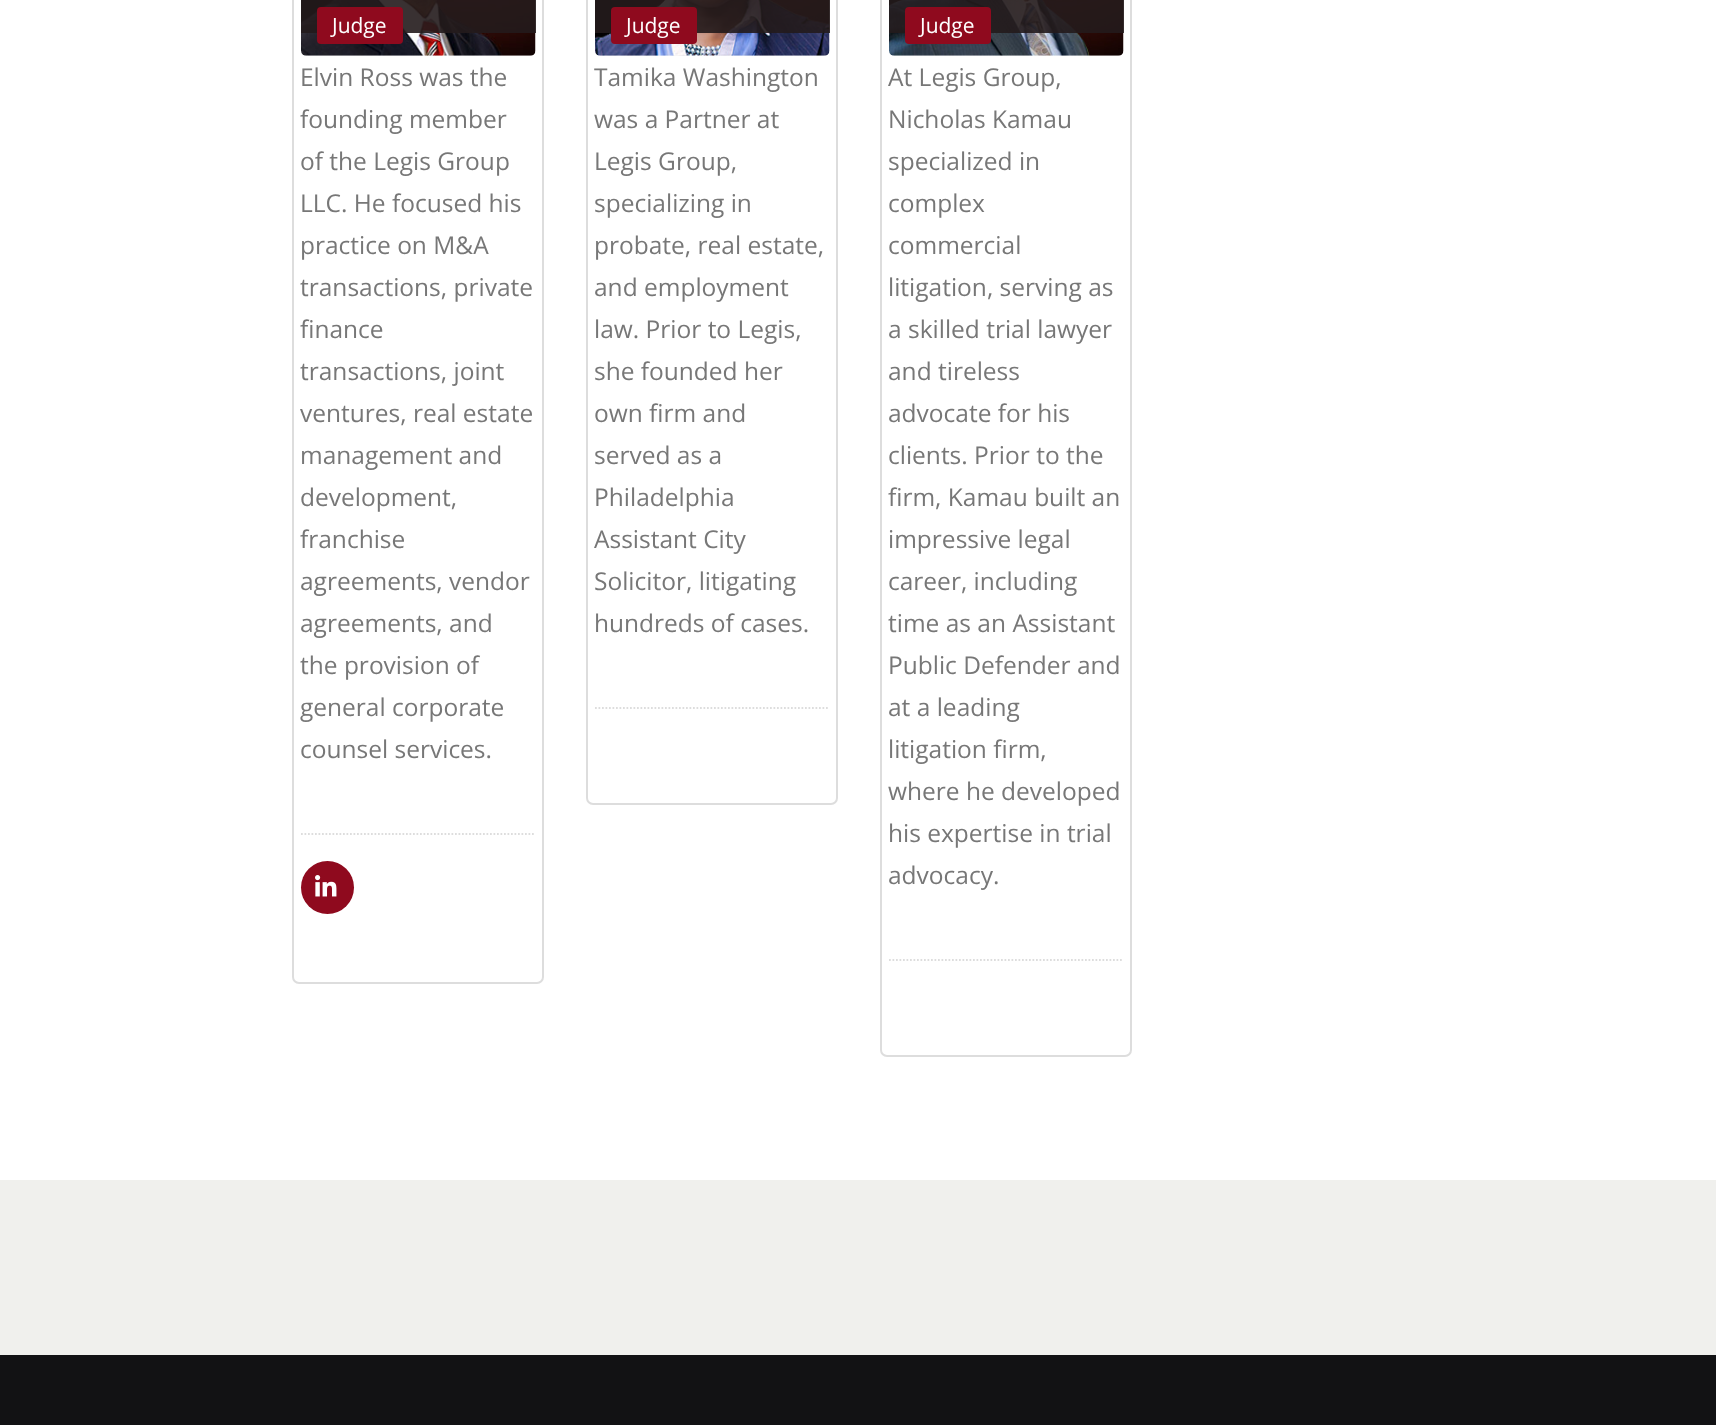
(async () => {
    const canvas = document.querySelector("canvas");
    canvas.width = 1716;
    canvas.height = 1425;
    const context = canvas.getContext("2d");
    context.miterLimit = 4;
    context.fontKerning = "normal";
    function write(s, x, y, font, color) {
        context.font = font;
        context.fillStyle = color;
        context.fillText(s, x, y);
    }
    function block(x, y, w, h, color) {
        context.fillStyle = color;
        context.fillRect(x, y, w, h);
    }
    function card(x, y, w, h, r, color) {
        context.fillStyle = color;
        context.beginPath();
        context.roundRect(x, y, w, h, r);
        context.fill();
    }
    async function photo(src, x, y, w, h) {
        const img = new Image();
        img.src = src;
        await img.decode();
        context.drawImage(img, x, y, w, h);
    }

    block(0, 0, 1716, 1425, "rgb(255, 255, 255)");
    context.beginPath();
    context.roundRect(293, -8, 250, 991, 6);
    context.strokeStyle = "rgb(221, 221, 221)";
    context.lineWidth = 2;
    context.stroke();
    await photo("media/1.png", 301, 0, 235, 56);
    block(301, 0, 235, 33, "rgba(36, 27, 28, 0.9)");
    card(317, 7, 86, 37, 4, "rgb(143, 10, 30)");
    write("Judge", 332, 33, "21px Open Sans", "rgb(255, 255, 255)");
    write("Elvin Ross was the", 300, 86, "24.5px Open Sans", "rgb(119, 119, 119)");
    write("founding member", 300, 128, "24.5px Open Sans", "rgb(119, 119, 119)");
    write("of the Legis Group", 300, 170, "24.5px Open Sans", "rgb(119, 119, 119)");
    write("LLC. He focused his", 300, 212, "24.5px Open Sans", "rgb(119, 119, 119)");
    write("practice on M&A", 300, 254, "24.5px Open Sans", "rgb(119, 119, 119)");
    write("transactions, private", 300, 296, "24.5px Open Sans", "rgb(119, 119, 119)");
    write("finance", 300, 338, "24.5px Open Sans", "rgb(119, 119, 119)");
    write("transactions, joint", 300, 380, "24.5px Open Sans", "rgb(119, 119, 119)");
    write("ventures, real estate", 300, 422, "24.5px Open Sans", "rgb(119, 119, 119)");
    write("management and", 300, 464, "24.5px Open Sans", "rgb(119, 119, 119)");
    write("development,", 300, 506, "24.5px Open Sans", "rgb(119, 119, 119)");
    write("franchise", 300, 548, "24.5px Open Sans", "rgb(119, 119, 119)");
    write("agreements, vendor", 300, 590, "24.5px Open Sans", "rgb(119, 119, 119)");
    write("agreements, and", 300, 632, "24.5px Open Sans", "rgb(119, 119, 119)");
    write("the provision of", 300, 674, "24.5px Open Sans", "rgb(119, 119, 119)");
    write("general corporate", 300, 716, "24.5px Open Sans", "rgb(119, 119, 119)");
    write("counsel services.", 300, 758, "24.5px Open Sans", "rgb(119, 119, 119)");
    context.beginPath();
    context.moveTo(301, 834);
    context.lineTo(535.5, 834);
    context.lineWidth = 1.8;
    context.setLineDash([1.75, 1.75]);
    context.stroke();
    context.fillStyle = "rgb(143, 10, 30)";
    context.beginPath();
    context.arc(327.5, 887.5, 26.5, 0, Math.PI * 2);
    context.fill();
    await photo("media/2.png", 315, 875, 22, 22);
    context.beginPath();
    context.roundRect(587, -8, 250, 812, 6);
    context.lineWidth = 2;
    context.setLineDash([]);
    context.stroke();
    await photo("media/3.png", 595, 0, 235, 56);
    block(595, 0, 235, 33, "rgba(36, 27, 28, 0.9)");
    card(611, 7, 86, 37, 4, "rgb(143, 10, 30)");
    write("Judge", 626, 33, "21px Open Sans", "rgb(255, 255, 255)");
    write("Tamika Washington", 594, 86, "24.5px Open Sans", "rgb(119, 119, 119)");
    write("was a Partner at", 594, 128, "24.5px Open Sans", "rgb(119, 119, 119)");
    write("Legis Group,", 594, 170, "24.5px Open Sans", "rgb(119, 119, 119)");
    write("specializing in", 594, 212, "24.5px Open Sans", "rgb(119, 119, 119)");
    write("probate, real estate,", 594, 254, "24.5px Open Sans", "rgb(119, 119, 119)");
    write("and employment", 594, 296, "24.5px Open Sans", "rgb(119, 119, 119)");
    write("law. Prior to Legis,", 594, 338, "24.5px Open Sans", "rgb(119, 119, 119)");
    write("she founded her", 594, 380, "24.5px Open Sans", "rgb(119, 119, 119)");
    write("own firm and", 594, 422, "24.5px Open Sans", "rgb(119, 119, 119)");
    write("served as a", 594, 464, "24.5px Open Sans", "rgb(119, 119, 119)");
    write("Philadelphia", 594, 506, "24.5px Open Sans", "rgb(119, 119, 119)");
    write("Assistant City", 594, 548, "24.5px Open Sans", "rgb(119, 119, 119)");
    write("Solicitor, litigating", 594, 590, "24.5px Open Sans", "rgb(119, 119, 119)");
    write("hundreds of cases.", 594, 632, "24.5px Open Sans", "rgb(119, 119, 119)");
    context.beginPath();
    context.moveTo(595, 708);
    context.lineTo(829.5, 708);
    context.lineWidth = 1.8;
    context.setLineDash([1.75, 1.75]);
    context.stroke();
    context.beginPath();
    context.roundRect(881, -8, 250, 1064, 6);
    context.lineWidth = 2;
    context.setLineDash([]);
    context.stroke();
    await photo("media/4.png", 889, 0, 235, 56);
    block(889, 0, 235, 33, "rgba(36, 27, 28, 0.9)");
    card(905, 7, 86, 37, 4, "rgb(143, 10, 30)");
    write("Judge", 920, 33, "21px Open Sans", "rgb(255, 255, 255)");
    write("At Legis Group,", 888, 86, "24.5px Open Sans", "rgb(119, 119, 119)");
    write("Nicholas Kamau", 888, 128, "24.5px Open Sans", "rgb(119, 119, 119)");
    write("specialized in", 888, 170, "24.5px Open Sans", "rgb(119, 119, 119)");
    write("complex", 888, 212, "24.5px Open Sans", "rgb(119, 119, 119)");
    write("commercial", 888, 254, "24.5px Open Sans", "rgb(119, 119, 119)");
    write("litigation, serving as", 888, 296, "24.5px Open Sans", "rgb(119, 119, 119)");
    write("a skilled trial lawyer", 888, 338, "24.5px Open Sans", "rgb(119, 119, 119)");
    write("and tireless", 888, 380, "24.5px Open Sans", "rgb(119, 119, 119)");
    write("advocate for his", 888, 422, "24.5px Open Sans", "rgb(119, 119, 119)");
    write("clients. Prior to the", 888, 464, "24.5px Open Sans", "rgb(119, 119, 119)");
    write("firm, Kamau built an", 888, 506, "24.5px Open Sans", "rgb(119, 119, 119)");
    write("impressive legal", 888, 548, "24.5px Open Sans", "rgb(119, 119, 119)");
    write("career, including", 888, 590, "24.5px Open Sans", "rgb(119, 119, 119)");
    write("time as an Assistant", 888, 632, "24.5px Open Sans", "rgb(119, 119, 119)");
    write("Public Defender and", 888, 674, "24.5px Open Sans", "rgb(119, 119, 119)");
    write("at a leading", 888, 716, "24.5px Open Sans", "rgb(119, 119, 119)");
    write("litigation firm,", 888, 758, "24.5px Open Sans", "rgb(119, 119, 119)");
    write("where he developed", 888, 800, "24.5px Open Sans", "rgb(119, 119, 119)");
    write("his expertise in trial", 888, 842, "24.5px Open Sans", "rgb(119, 119, 119)");
    write("advocacy.", 888, 884, "24.5px Open Sans", "rgb(119, 119, 119)");
    context.beginPath();
    context.moveTo(889, 960);
    context.lineTo(1123.5, 960);
    context.lineWidth = 1.8;
    context.setLineDash([1.75, 1.75]);
    context.stroke();
    block(0, 1180, 1716, 175, "rgb(240, 240, 237)");
    block(0, 1355, 1716, 70, "rgb(18, 18, 20)");
})();
